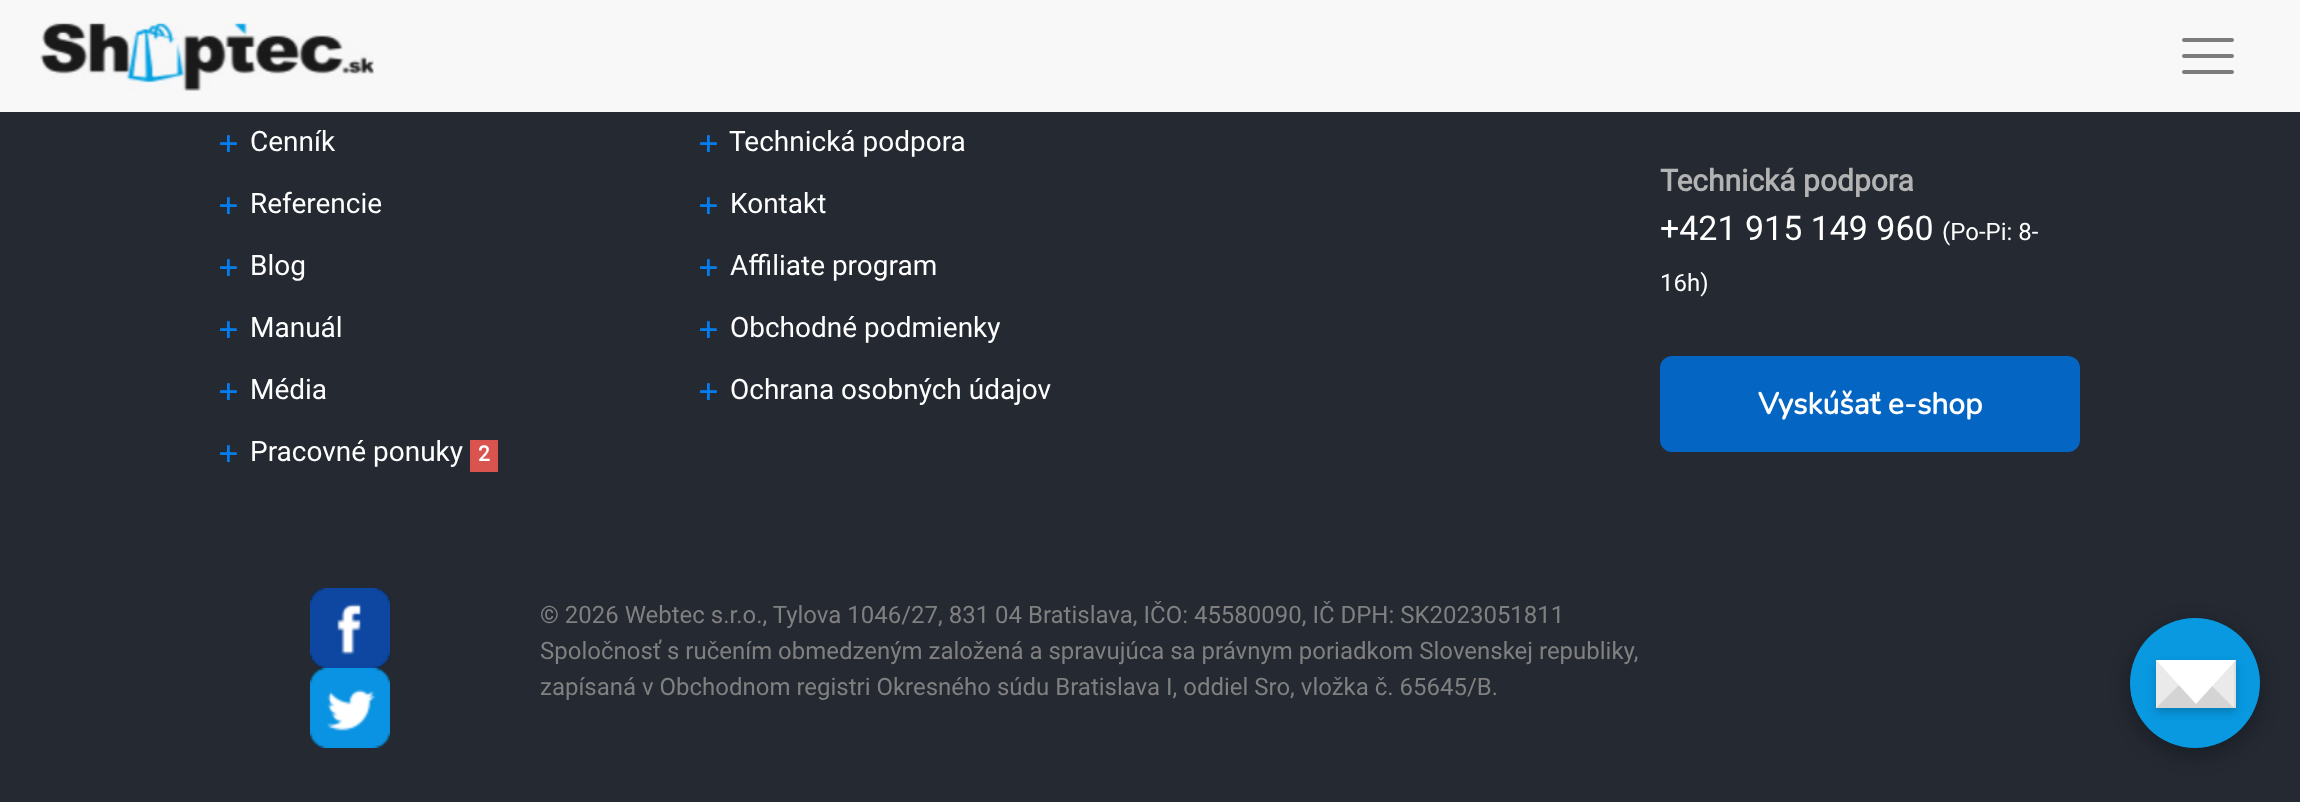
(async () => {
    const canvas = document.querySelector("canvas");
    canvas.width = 2300;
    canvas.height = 802;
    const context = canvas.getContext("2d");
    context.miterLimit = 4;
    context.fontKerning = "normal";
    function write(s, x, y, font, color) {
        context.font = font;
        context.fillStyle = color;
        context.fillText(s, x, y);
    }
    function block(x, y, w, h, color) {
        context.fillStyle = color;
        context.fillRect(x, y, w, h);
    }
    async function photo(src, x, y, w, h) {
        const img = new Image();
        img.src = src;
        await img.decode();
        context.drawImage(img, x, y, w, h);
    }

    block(0, 0, 2300, 802, "rgb(36, 41, 50)");
    block(0, 0, 2300, 112, "rgb(248, 248, 248)");
    await photo("media/1.png", 40, 22, 334, 70);
    context.beginPath();
    context.moveTo(2184, 40);
    context.lineTo(2232, 40);
    context.moveTo(2184, 56);
    context.lineTo(2232, 56);
    context.moveTo(2184, 72);
    context.lineTo(2232, 72);
    context.strokeStyle = "rgb(124, 124, 124)";
    context.lineWidth = 4;
    context.lineCap = "round";
    context.stroke();
    await photo("media/2.png", 220, 135, 17, 17);
    write("Cenník", 250, 151, "28px Roboto", "rgb(255, 255, 255)");
    await photo("media/2.png", 220, 197, 17, 17);
    write("Referencie", 250, 213, "28px Roboto", "rgb(255, 255, 255)");
    await photo("media/2.png", 220, 259, 17, 17);
    write("Blog", 250, 275, "28px Roboto", "rgb(255, 255, 255)");
    await photo("media/2.png", 220, 321, 17, 17);
    write("Manuál", 250, 337, "28px Roboto", "rgb(255, 255, 255)");
    await photo("media/2.png", 220, 383, 17, 17);
    write("Média", 250, 399, "28px Roboto", "rgb(255, 255, 255)");
    await photo("media/2.png", 220, 445, 17, 17);
    write("Pracovné ponuky", 250, 461, "28px Roboto", "rgb(255, 255, 255)");
    block(470, 440, 28, 32, "rgb(217, 83, 79)");
    write("2", 478, 461, "bold 21px Roboto", "rgb(255, 255, 255)");
    await photo("media/2.png", 700, 135, 17, 17);
    write("Technická podpora", 729, 151, "28px Roboto", "rgb(255, 255, 255)");
    await photo("media/2.png", 700, 197, 17, 17);
    write("Kontakt", 730, 213, "28px Roboto", "rgb(255, 255, 255)");
    await photo("media/2.png", 700, 259, 17, 17);
    write("Affiliate program", 730, 275, "28px Roboto", "rgb(255, 255, 255)");
    await photo("media/2.png", 700, 321, 17, 17);
    write("Obchodné podmienky", 730, 337, "28px Roboto", "rgb(255, 255, 255)");
    await photo("media/2.png", 700, 383, 17, 17);
    write("Ochrana osobných údajov", 730, 399, "28px Roboto", "rgb(255, 255, 255)");
    write("Technická podpora", 1660, 191, "bold 30px Roboto", "rgb(179, 179, 179)");
    write("+421 915 149 960", 1660, 240, "34px Roboto", "rgb(255, 255, 255)");
    write("(Po-Pi: 8-", 1942, 240, "24px Roboto", "rgb(255, 255, 255)");
    write("16h)", 1660, 291, "24px Roboto", "rgb(255, 255, 255)");
    context.fillStyle = "rgb(4, 101, 195)";
    context.beginPath();
    context.roundRect(1662, 358, 416, 92, 10);
    context.fill();
    context.strokeStyle = "rgb(4, 101, 195)";
    context.stroke();
    write("Vyskúšať e-shop", 1758, 414, "bold 30px Nunito", "rgb(255, 255, 255)");
    await photo("media/3.png", 310, 588, 80, 80);
    await photo("media/4.png", 310, 668, 80, 80);
    write("© 2026 Webtec s.r.o., Tylova 1046/27, 831 04 Bratislava, IČO: 45580090, IČ DPH: SK2023051811", 540, 623, "24px Roboto", "rgb(128, 128, 128)");
    write("Spoločnosť s ručením obmedzeným založená a spravujúca sa právnym poriadkom Slovenskej republiky,", 540, 659, "24px Roboto", "rgb(128, 128, 128)");
    write("zapísaná v Obchodnom registri Okresného súdu Bratislava I, oddiel Sro, vložka č. 65645/B.", 540, 695, "24px Roboto", "rgb(128, 128, 128)");
    context.fillStyle = "rgba(0, 0, 0, 0.3)";
    context.filter = "blur(10px)";
    context.beginPath();
    context.roundRect(2130, 624, 130, 130, 65);
    context.fill();
    context.filter = "none";
    context.fillStyle = "rgb(8, 153, 225)";
    context.beginPath();
    context.arc(2195, 683, 65, 0, Math.PI * 2);
    context.fill();
    context.fillStyle = "rgba(0, 0, 0, 0.2)";
    context.filter = "blur(5px)";
    context.beginPath();
    context.rect(2156, 664, 80, 48);
    context.fill();
    context.filter = "none";
    block(2156, 660, 80, 48, "rgb(221, 221, 221)");
    context.fillStyle = "rgb(212, 212, 212)";
    context.beginPath();
    context.moveTo(2236, 708);
    context.lineTo(2156, 708);
    context.lineTo(2196, 664);
    context.closePath();
    context.fill();
    context.fillStyle = "rgb(234, 234, 234)";
    context.beginPath();
    context.moveTo(2156, 708);
    context.lineTo(2156, 660);
    context.lineTo(2180, 684);
    context.closePath();
    context.fill();
    context.beginPath();
    context.moveTo(2234, 660);
    context.lineTo(2234, 708);
    context.lineTo(2210, 684);
    context.closePath();
    context.fill();
    context.fillStyle = "rgb(255, 255, 255)";
    context.beginPath();
    context.moveTo(2156, 660);
    context.lineTo(2236, 660);
    context.lineTo(2196, 704);
    context.closePath();
    context.fill();
})();
